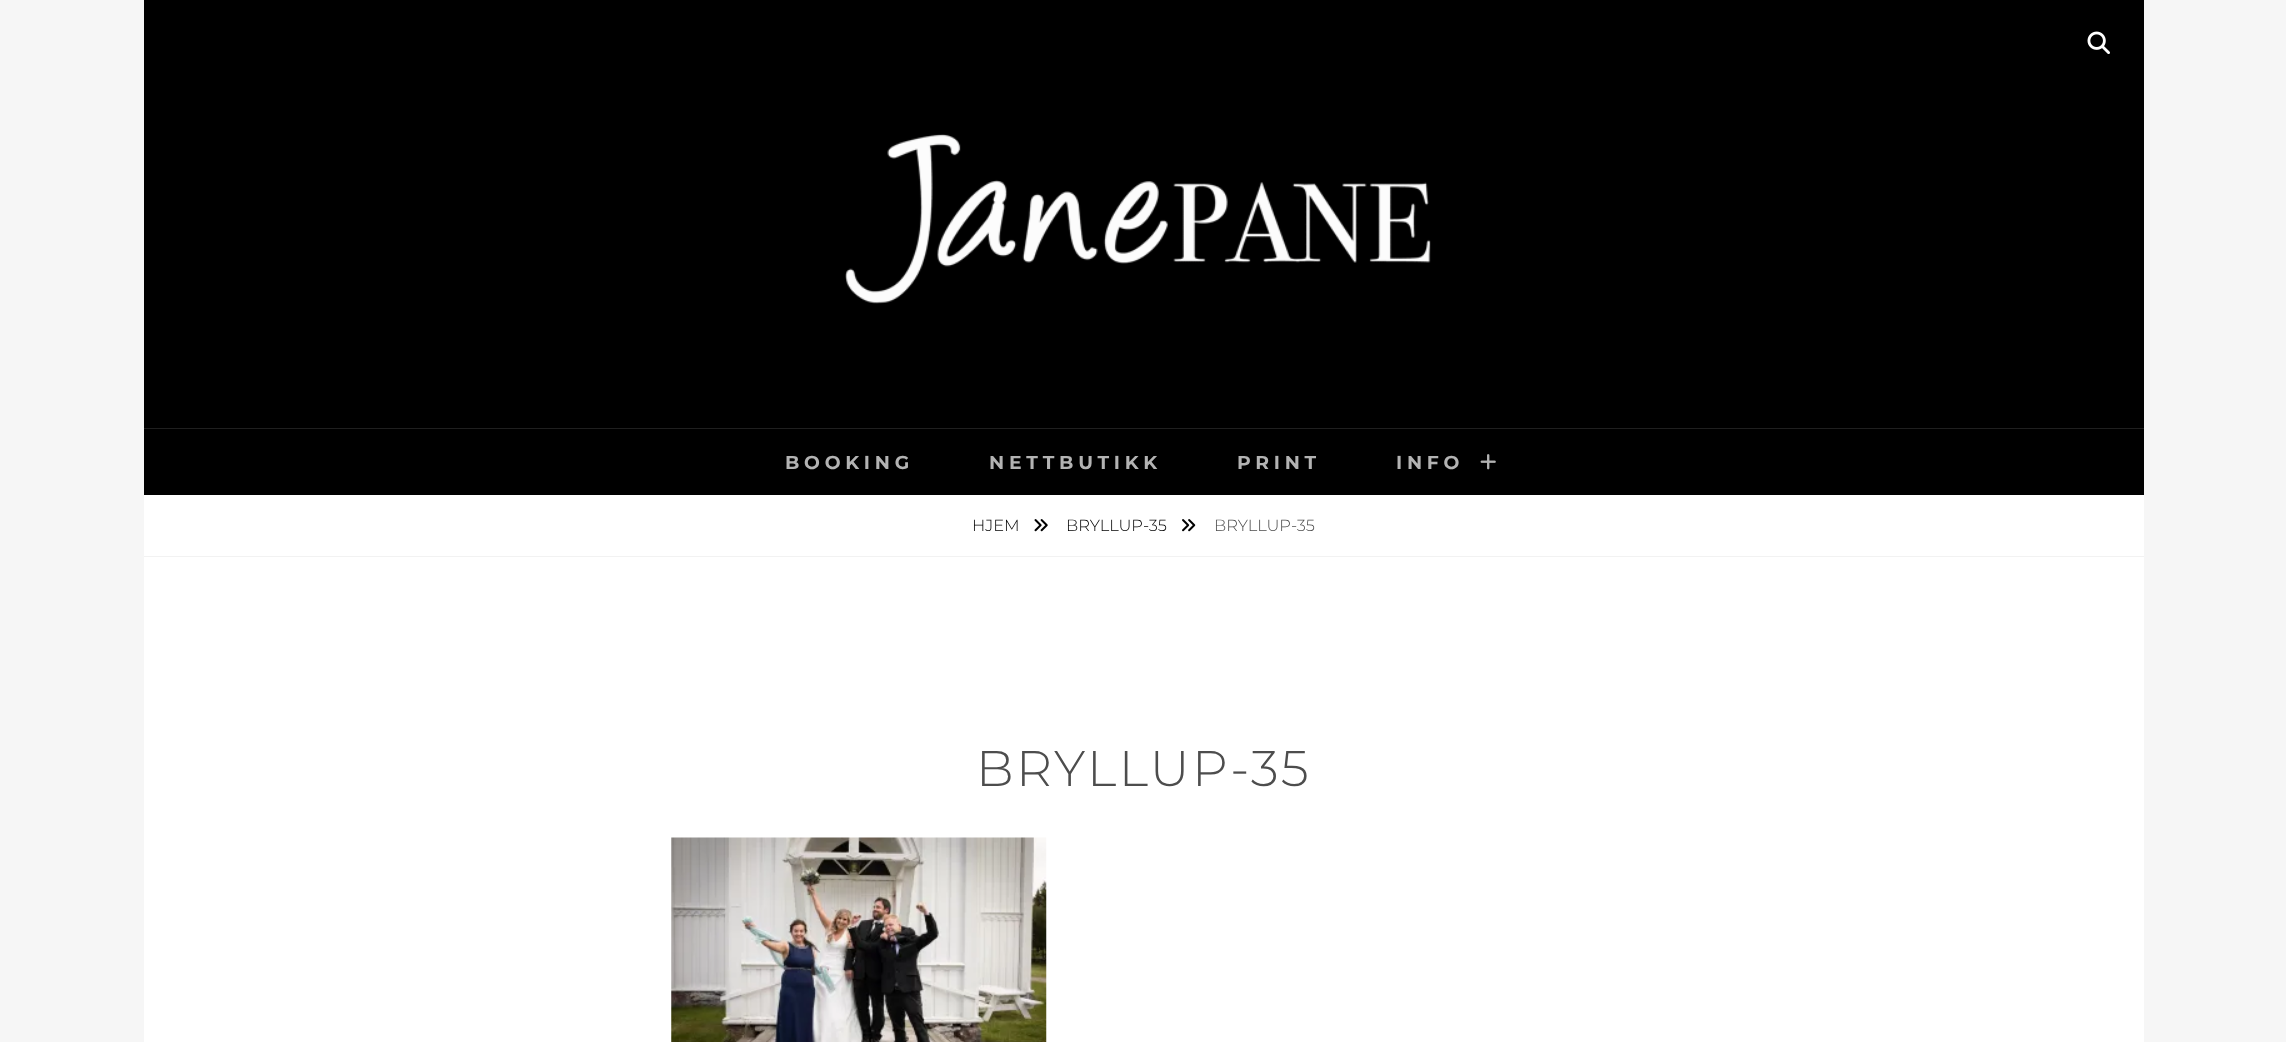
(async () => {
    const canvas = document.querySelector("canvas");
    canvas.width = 2286;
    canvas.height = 1042;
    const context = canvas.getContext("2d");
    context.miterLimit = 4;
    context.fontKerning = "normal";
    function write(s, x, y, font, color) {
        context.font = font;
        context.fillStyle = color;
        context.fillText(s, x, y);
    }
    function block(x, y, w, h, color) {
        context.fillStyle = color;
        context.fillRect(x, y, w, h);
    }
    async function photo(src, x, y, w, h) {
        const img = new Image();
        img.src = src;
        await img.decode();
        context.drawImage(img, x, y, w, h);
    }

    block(0, 0, 2286, 1042, "rgb(246, 246, 246)");
    block(144, 495, 2000, 547, "rgb(255, 255, 255)");
    block(144, 0, 2000, 495, "rgb(0, 0, 0)");
    await photo("media/1.png", 2087, 31, 23, 23);
    await photo("media/2.png", 845, 134, 586, 170);
    block(144, 428, 2000, 1, "rgb(31, 31, 31)");
    context.letterSpacing = "4.75px";
    write("BOOKING", 785, 469, "bold 18.75px Montserrat", "rgb(179, 179, 179)");
    write("NETTBUTIKK", 989, 469, "bold 18.75px Montserrat", "rgb(179, 179, 179)");
    write("PRINT", 1237, 469, "bold 18.75px Montserrat", "rgb(179, 179, 179)");
    write("INFO", 1396, 469, "bold 18.75px Montserrat", "rgb(179, 179, 179)");
    await photo("media/3.png", 1480, 454, 16, 16);
    block(144, 556, 2000, 1, "rgb(242, 242, 242)");
    context.letterSpacing = "0px";
    write("HJEM", 972, 531, "300 16.25px Montserrat", "rgb(0, 0, 0)");
    await photo("media/4.png", 1034, 519, 14, 13);
    write("BRYLLUP-35", 1066, 531, "300 16.25px Montserrat", "rgb(0, 0, 0)");
    await photo("media/5.png", 1182, 519, 14, 13);
    write("BRYLLUP-35", 1214, 531, "300 16.25px Montserrat", "rgb(77, 77, 77)");
    context.letterSpacing = "2.5px";
    write("BRYLLUP-35", 976, 786, "300 50px Montserrat", "rgb(77, 77, 77)");
    await photo("media/6.png", 671, 837, 376, 205);
})();
